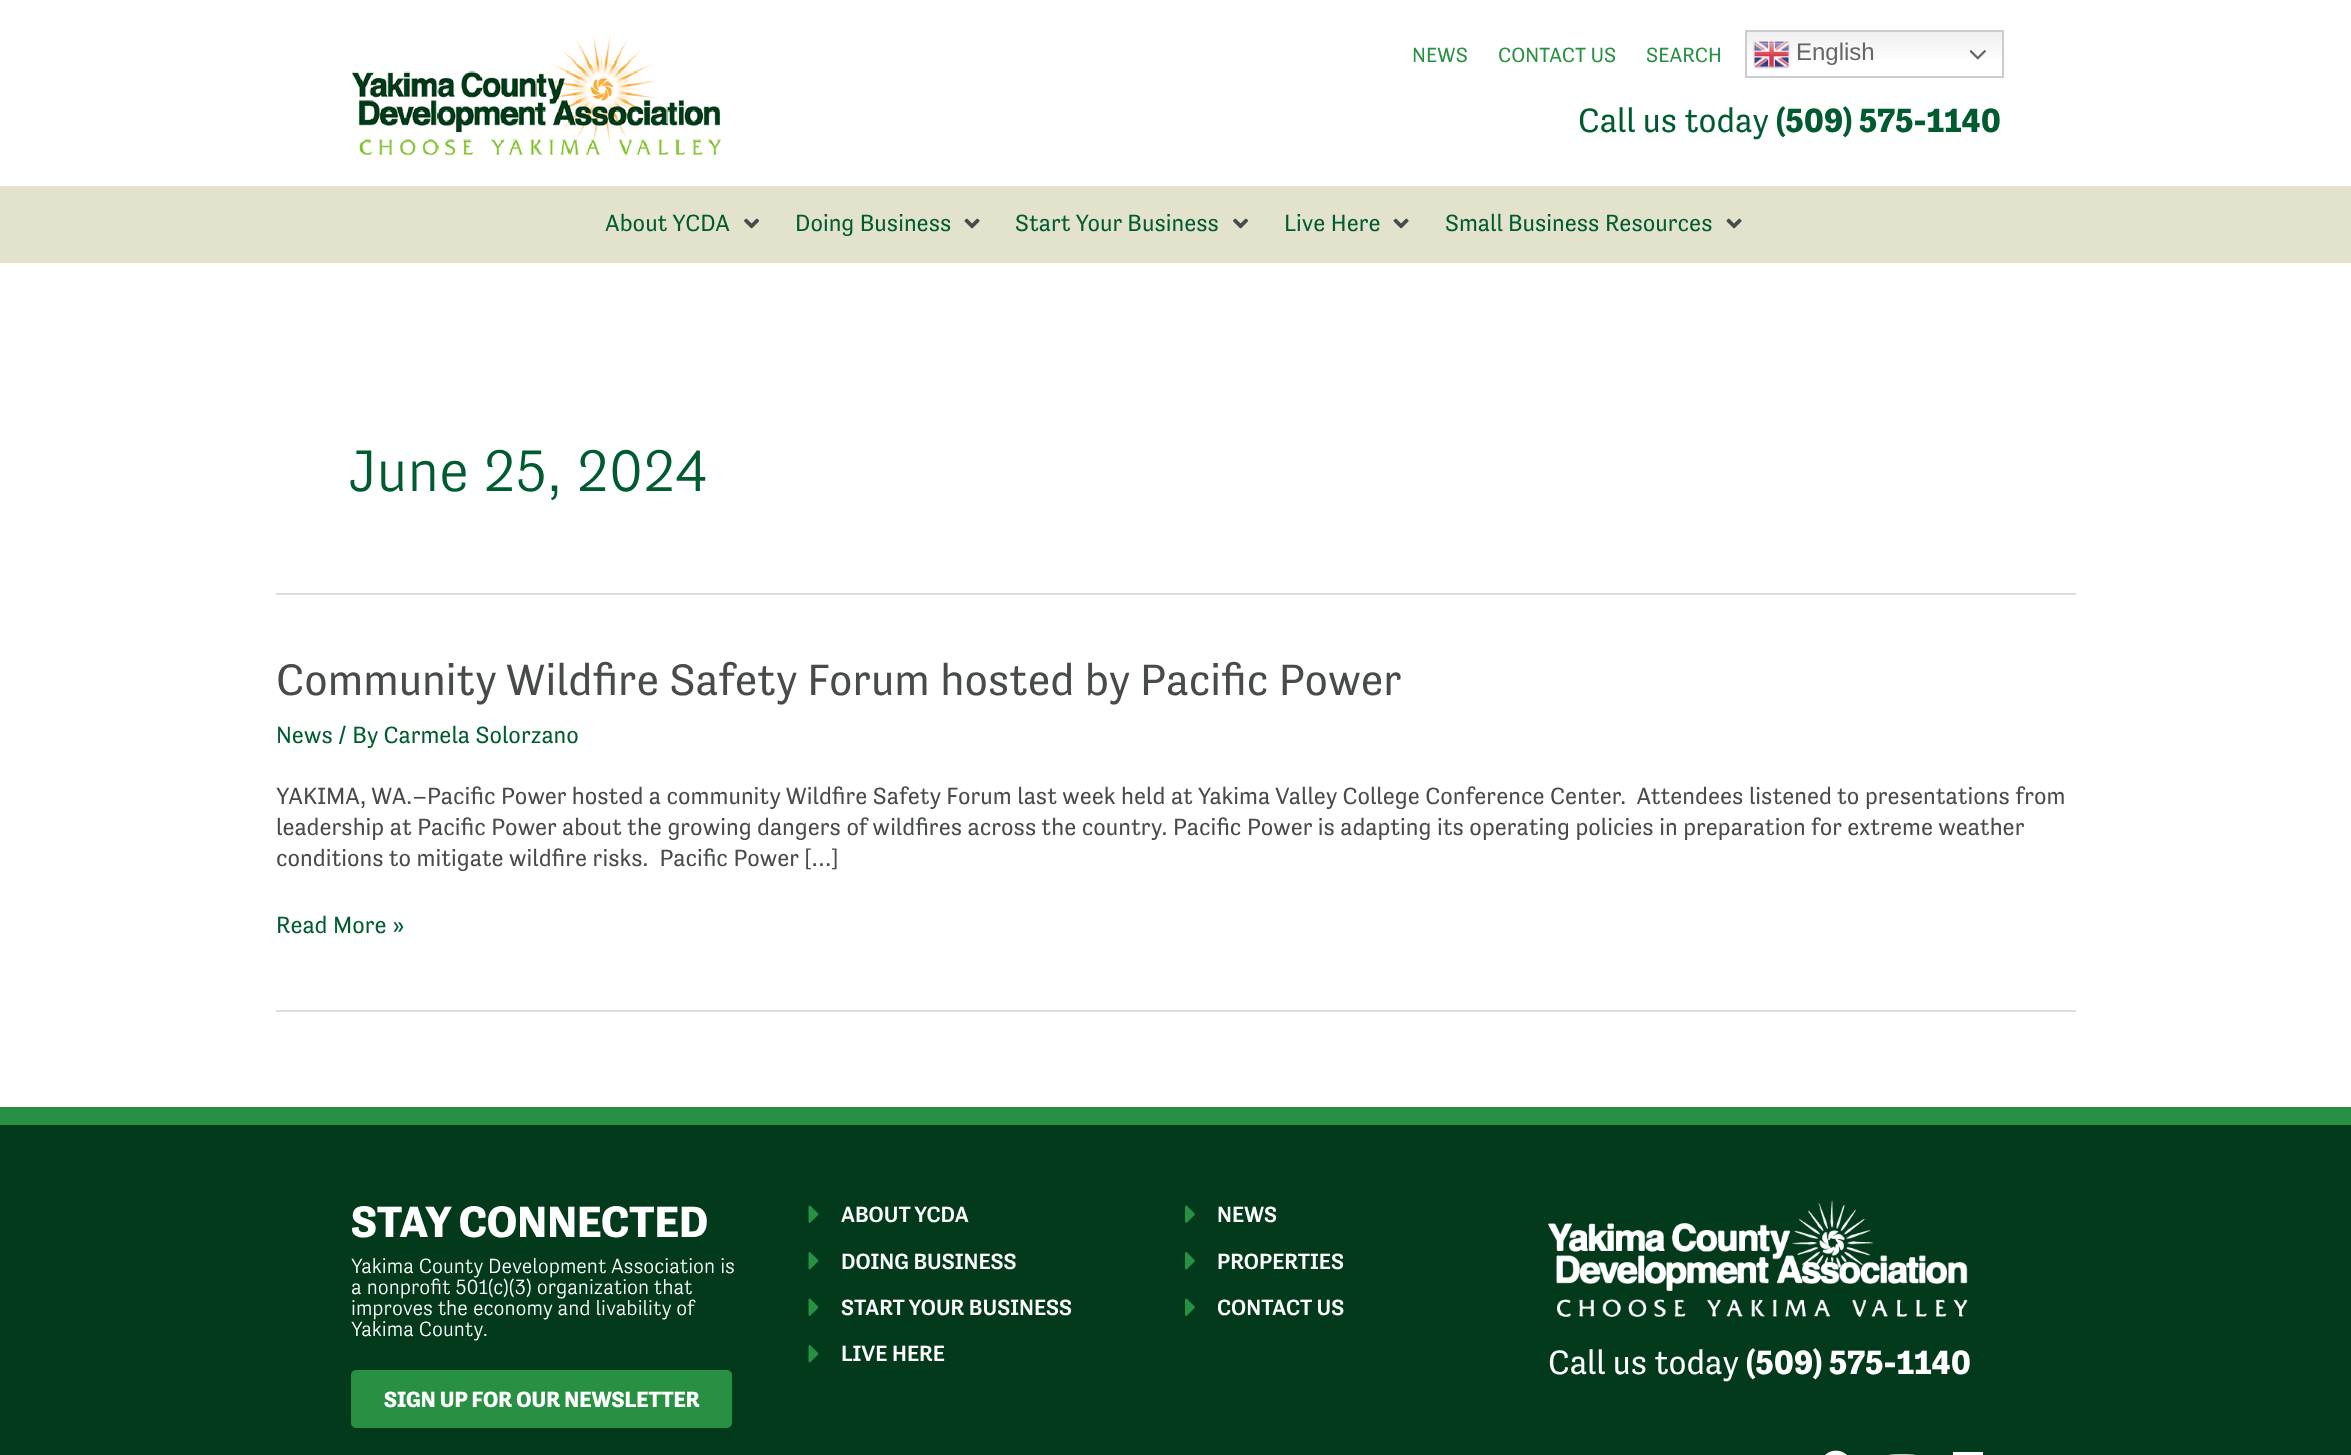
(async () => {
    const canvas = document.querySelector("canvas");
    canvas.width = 2351;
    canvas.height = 1455;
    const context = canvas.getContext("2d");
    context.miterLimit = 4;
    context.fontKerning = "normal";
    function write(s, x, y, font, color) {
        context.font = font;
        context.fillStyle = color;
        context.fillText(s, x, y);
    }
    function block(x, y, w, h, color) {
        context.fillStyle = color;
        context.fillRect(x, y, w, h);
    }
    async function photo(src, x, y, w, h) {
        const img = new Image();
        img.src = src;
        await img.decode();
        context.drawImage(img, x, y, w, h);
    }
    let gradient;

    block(0, 0, 2351, 1455, "rgb(255, 255, 255)");
    await photo("media/1.png", 351, 33, 370, 123);
    write("NEWS", 1412, 62, "21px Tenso", "rgb(40, 144, 66)");
    write("CONTACT US", 1498, 62, "21px Tenso", "rgb(40, 144, 66)");
    write("SEARCH", 1646, 62, "21px Tenso", "rgb(40, 144, 66)");
    gradient = context.createLinearGradient(1874, 30, 1874, 78);
    gradient.addColorStop(0, "rgb(239, 239, 239)");
    gradient.addColorStop(0.7, "rgb(255, 255, 255)");
    context.fillStyle = gradient;
    context.fillRect(1747, 32, 255, 26);
    context.strokeStyle = "rgb(204, 204, 204)";
    context.lineWidth = 2;
    context.strokeRect(1746, 31, 257, 46);
    await photo("media/2.png", 1753, 41, 37, 28);
    write("English", 1796, 60, "24px Liberation Sans", "rgb(102, 102, 102)");
    await photo("media/3.png", 1970, 50, 16, 10);
    write("Call us today", 1578, 132, "34.5px Tenso", "rgb(0, 91, 49)");
    write("(509) 575-1140", 1776, 132, "bold 34.5px Tenso", "rgb(0, 91, 49)");
    block(0, 186, 2351, 77, "rgb(227, 226, 204)");
    write("About YCDA", 605, 231, "24px Tenso", "rgb(0, 91, 49)");
    await photo("media/4.png", 744, 218, 15, 11);
    write("Doing Business", 795, 231, "24px Tenso", "rgb(0, 91, 49)");
    await photo("media/5.png", 964, 218, 16, 11);
    write("Start Your Business", 1015, 231, "24px Tenso", "rgb(0, 91, 49)");
    await photo("media/4.png", 1233, 218, 15, 11);
    write("Live Here", 1284, 231, "24px Tenso", "rgb(0, 91, 49)");
    await photo("media/5.png", 1393, 218, 16, 11);
    write("Small Business Resources", 1445, 231, "24px Tenso", "rgb(0, 91, 49)");
    await photo("media/5.png", 1726, 218, 16, 11);
    block(276, 593, 1800, 2, "rgb(221, 221, 221)");
    write("June 25, 2024", 348, 491, "300 60px Tenso", "rgb(0, 91, 49)");
    block(276, 1010, 1800, 2, "rgb(221, 221, 221)");
    write("Community Wildfire Safety Forum hosted by Pacific Power", 276, 695, "45px Tenso", "rgb(71, 75, 74)");
    write("News / By Carmela Solorzano", 276, 743, "24px Tenso", "rgb(0, 91, 49)");
    write("YAKIMA, WA.–Pacific Power hosted a community Wildfire Safety Forum last week held at Yakima Valley College Conference Center.  Attendees listened to presentations from", 276, 804, "24px Tenso", "rgb(71, 75, 74)");
    write("leadership at Pacific Power about the growing dangers of wildfires across the country. Pacific Power is adapting its operating policies in preparation for extreme weather", 276, 835, "24px Tenso", "rgb(71, 75, 74)");
    write("conditions to mitigate wildfire risks.  Pacific Power […]", 276, 866, "24px Tenso", "rgb(71, 75, 74)");
    write("Read More »", 276, 933, "24px Tenso", "rgb(0, 91, 49)");
    block(0, 1125, 2351, 330, "rgb(2, 58, 27)");
    block(0, 1107, 2351, 18, "rgb(40, 144, 66)");
    write("STAY CONNECTED", 351, 1237, "bold 45px Tenso", "rgb(255, 255, 255)");
    write("Yakima County Development Association is", 351, 1273, "300 21px Tenso", "rgb(255, 255, 255)");
    write("a nonprofit 501(c)(3) organization that", 351, 1294, "300 21px Tenso", "rgb(255, 255, 255)");
    write("improves the economy and livability of", 351, 1315, "300 21px Tenso", "rgb(255, 255, 255)");
    write("Yakima County.", 351, 1336, "300 21px Tenso", "rgb(255, 255, 255)");
    context.fillStyle = "rgb(40, 144, 66)";
    context.beginPath();
    context.roundRect(352.5, 1371.5, 378, 55, 3.5);
    context.fill();
    context.strokeStyle = "rgb(40, 144, 66)";
    context.lineWidth = 3;
    context.stroke();
    write("SIGN UP FOR OUR NEWSLETTER", 384, 1407, "bold 22.5px Tenso", "rgb(255, 255, 255)");
    await photo("media/6.png", 808, 1205, 11, 18);
    write("ABOUT YCDA", 841, 1222, "500 22.5px Tenso", "rgb(255, 255, 255)");
    await photo("media/7.png", 808, 1252, 11, 18);
    write("DOING BUSINESS", 841, 1269, "500 22.5px Tenso", "rgb(255, 255, 255)");
    await photo("media/6.png", 808, 1298, 11, 18);
    write("START YOUR BUSINESS", 841, 1315, "500 22.5px Tenso", "rgb(255, 255, 255)");
    await photo("media/7.png", 808, 1345, 11, 18);
    write("LIVE HERE", 841, 1361, "500 22.5px Tenso", "rgb(255, 255, 255)");
    await photo("media/8.png", 1185, 1205, 10, 18);
    write("NEWS", 1217, 1222, "500 22.5px Tenso", "rgb(255, 255, 255)");
    await photo("media/9.png", 1185, 1252, 10, 18);
    write("PROPERTIES", 1217, 1269, "500 22.5px Tenso", "rgb(255, 255, 255)");
    await photo("media/8.png", 1185, 1298, 10, 18);
    write("CONTACT US", 1217, 1315, "500 22.5px Tenso", "rgb(255, 255, 255)");
    await photo("media/10.png", 1548, 1200, 420, 117);
    write("Call us today", 1548, 1374, "34.5px Tenso", "rgb(255, 255, 255)");
    write("(509) 575-1140", 1746, 1374, "bold 34.5px Tenso", "rgb(255, 255, 255)");
    await photo("media/11.png", 1825, 1450, 22, 5);
    await photo("media/12.png", 1888, 1454, 28, 1);
    block(1953, 1452, 30, 3, "rgb(255, 255, 255)");
})();
